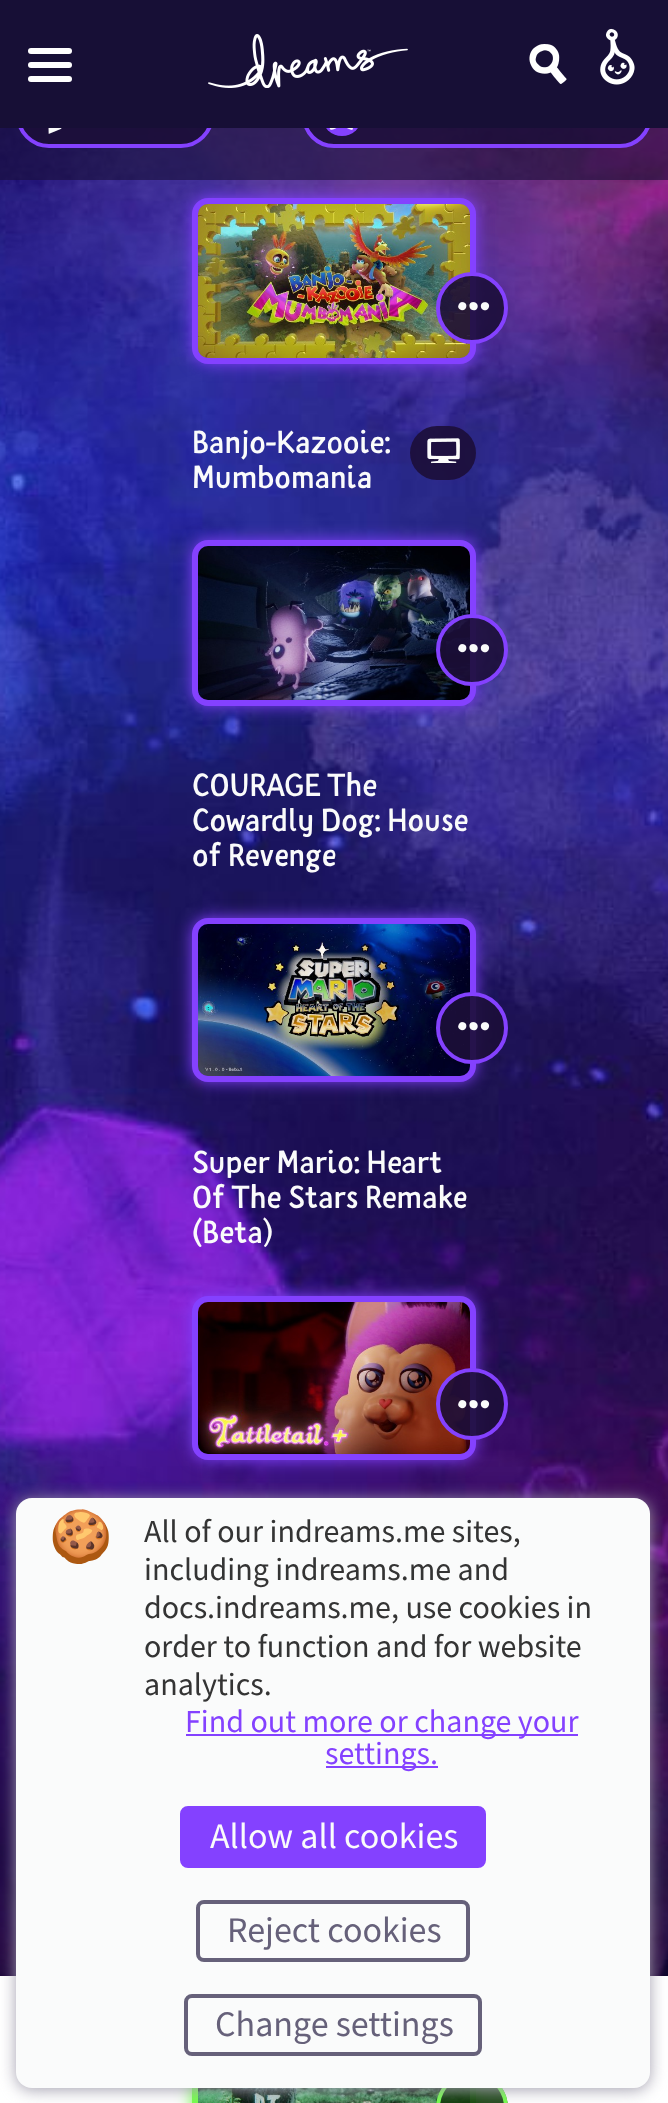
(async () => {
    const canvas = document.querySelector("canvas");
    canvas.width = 668;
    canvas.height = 2103;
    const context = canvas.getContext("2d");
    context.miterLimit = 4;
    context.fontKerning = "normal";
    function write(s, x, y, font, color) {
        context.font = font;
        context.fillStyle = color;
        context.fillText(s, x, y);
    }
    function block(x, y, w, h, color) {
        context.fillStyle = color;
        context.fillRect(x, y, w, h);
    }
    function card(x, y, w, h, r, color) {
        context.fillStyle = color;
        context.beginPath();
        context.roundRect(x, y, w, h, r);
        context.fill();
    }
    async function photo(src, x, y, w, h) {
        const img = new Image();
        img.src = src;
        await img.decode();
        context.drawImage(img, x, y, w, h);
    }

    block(0, 0, 668, 2103, "rgb(255, 255, 255)");
    await photo("media/4.png", 0, 128, 668, 1848);
    context.fillStyle = "rgb(132, 65, 255)";
    context.filter = "blur(8px)";
    context.beginPath();
    context.roundRect(192, 198, 284, 166, 16);
    context.fill();
    context.filter = "none";
    block(0, 128, 668, 52, "rgba(23, 15, 54, 0.6)");
    context.fillStyle = "rgba(28, 14, 56, 0.9)";
    context.beginPath();
    context.roundRect(18, 84, 194, 62, 31);
    context.fill();
    context.strokeStyle = "rgb(132, 65, 255)";
    context.lineWidth = 4;
    context.stroke();
    context.fillStyle = "rgba(28, 14, 56, 0.8)";
    context.beginPath();
    context.roundRect(304, 86, 346, 60, 30);
    context.fill();
    context.stroke();
    context.fillStyle = "rgb(132, 65, 255)";
    context.beginPath();
    context.arc(342, 116, 20, 0, Math.PI * 2);
    context.fill();
    block(0, 0, 668, 128, "rgb(23, 15, 54)");
    card(28, 48, 44, 6, 3, "rgb(255, 255, 255)");
    card(28, 62, 44, 6, 3, "rgb(255, 255, 255)");
    card(28, 76, 44, 6, 3, "rgb(255, 255, 255)");
    await photo("media/1.png", 208, 34, 200, 54);
    await photo("media/2.png", 529, 44, 38, 40);
    await photo("media/3.png", 600, 28, 35, 57);
    await photo("media/5.png", 48, 128, 14, 6);
    await photo("media/6.png", 329, 128, 24, 2);
    context.beginPath();
    context.roundRect(195, 201, 278, 160, 13);
    context.lineWidth = 6;
    context.stroke();
    await photo("media/7.png", 198, 204, 272, 154);
    context.fillStyle = "rgba(28, 14, 56, 0.9)";
    context.beginPath();
    context.arc(472, 308, 34, 0, Math.PI * 2);
    context.fill();
    context.lineWidth = 4;
    context.stroke();
    await photo("media/8.png", 458, 302, 32, 9);
    write("Banjo-Kazooie:", 192, 453, "32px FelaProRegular", "rgb(250, 251, 251)");
    write("Mumbomania", 192, 488, "32px FelaProRegular", "rgb(250, 251, 251)");
    card(410, 426, 66, 54, 27, "rgba(28, 14, 56, 0.9)");
    await photo("media/9.png", 427, 438, 33, 26);
    context.fillStyle = "rgb(132, 65, 255)";
    context.filter = "blur(8px)";
    context.beginPath();
    context.roundRect(192, 540, 284, 166, 16);
    context.fill();
    context.filter = "none";
    context.beginPath();
    context.roundRect(195, 543, 278, 160, 13);
    context.lineWidth = 6;
    context.stroke();
    await photo("media/10.png", 198, 546, 272, 154);
    context.fillStyle = "rgba(28, 14, 56, 0.9)";
    context.beginPath();
    context.arc(472, 650, 34, 0, Math.PI * 2);
    context.fill();
    context.lineWidth = 4;
    context.stroke();
    await photo("media/11.png", 458, 644, 32, 9);
    write("COURAGE The", 192, 796, "32px FelaProRegular", "rgb(250, 251, 251)");
    write("Cowardly Dog: House", 192, 831, "32px FelaProRegular", "rgb(250, 251, 251)");
    write("of Revenge", 192, 866, "32px FelaProRegular", "rgb(250, 251, 251)");
    context.fillStyle = "rgb(132, 65, 255)";
    context.filter = "blur(8px)";
    context.beginPath();
    context.roundRect(192, 918, 284, 164, 16);
    context.fill();
    context.filter = "none";
    context.beginPath();
    context.roundRect(195, 921, 278, 158, 13);
    context.lineWidth = 6;
    context.stroke();
    await photo("media/12.png", 198, 924, 272, 152);
    context.fillStyle = "rgba(28, 14, 56, 0.9)";
    context.beginPath();
    context.arc(472, 1028, 34, 0, Math.PI * 2);
    context.fill();
    context.lineWidth = 4;
    context.stroke();
    await photo("media/13.png", 458, 1022, 32, 9);
    write("Super Mario: Heart", 192, 1173, "32px FelaProRegular", "rgb(250, 251, 251)");
    write("Of The Stars Remake", 192, 1208, "32px FelaProRegular", "rgb(250, 251, 251)");
    write("(Beta)", 192, 1243, "32px FelaProRegular", "rgb(250, 251, 251)");
    context.fillStyle = "rgb(132, 65, 255)";
    context.filter = "blur(8px)";
    context.beginPath();
    context.roundRect(192, 1296, 284, 164, 16);
    context.fill();
    context.filter = "none";
    context.beginPath();
    context.roundRect(195, 1299, 278, 158, 13);
    context.lineWidth = 6;
    context.stroke();
    await photo("media/14.png", 198, 1302, 272, 152);
    context.fillStyle = "rgba(28, 14, 56, 0.9)";
    context.beginPath();
    context.arc(472, 1404, 34, 0, Math.PI * 2);
    context.fill();
    context.lineWidth = 4;
    context.stroke();
    await photo("media/15.png", 458, 1400, 32, 9);
    context.fillStyle = "rgb(116, 255, 75)";
    context.filter = "blur(8px)";
    context.beginPath();
    context.roundRect(192, 1998, 284, 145, 16);
    context.fill();
    context.filter = "none";
    context.strokeStyle = "rgb(116, 255, 75)";
    context.lineWidth = 6;
    context.strokeRect(195, 2001, 278, 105);
    await photo("media/16.png", 198, 2088, 272, 15);
    context.fillStyle = "rgba(12, 55, 6, 0.9)";
    context.beginPath();
    context.moveTo(472, 2072);
    context.bezierCurveTo(492, 2072, 508, 2088, 508, 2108);
    context.lineTo(508, 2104);
    context.lineTo(436, 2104);
    context.lineTo(436, 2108);
    context.bezierCurveTo(436, 2088, 452, 2072, 472, 2072);
    context.closePath();
    context.fill();
    context.beginPath();
    context.roundRect(438, 2074, 68, 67, 34);
    context.lineWidth = 4;
    context.stroke();
    context.fillStyle = "rgb(164, 161, 176)";
    context.filter = "blur(8px)";
    context.beginPath();
    context.roundRect(16, 1500, 634, 590, 16);
    context.fill();
    context.filter = "none";
    card(16, 1498, 634, 590, 16, "rgb(250, 251, 251)");
    write("🍪", 49, 1554, "51px Noto Color Emoji", "rgb(52, 52, 52)");
    write("All of our indreams.me sites,", 144, 1542, "32px Source Sans Pro", "rgb(52, 52, 52)");
    write("including indreams.me and", 144, 1580, "32px Source Sans Pro", "rgb(52, 52, 52)");
    write("docs.indreams.me, use cookies in", 144, 1618, "32px Source Sans Pro", "rgb(52, 52, 52)");
    write("order to function and for website", 144, 1657, "32px Source Sans Pro", "rgb(52, 52, 52)");
    write("analytics.", 144, 1695, "32px Source Sans Pro", "rgb(52, 52, 52)");
    block(186, 1734, 392, 2, "rgb(132, 65, 255)");
    write("Find out more or change your", 185, 1732, "32px Source Sans Pro", "rgb(132, 65, 255)");
    block(326, 1766, 112, 2, "rgb(132, 65, 255)");
    write("settings.", 325, 1764, "32px Source Sans Pro", "rgb(132, 65, 255)");
    context.beginPath();
    context.roundRect(182, 1808, 302, 58, 6);
    context.fill();
    context.strokeStyle = "rgb(132, 65, 255)";
    context.stroke();
    write("Allow all cookies", 210, 1848, "36px Source Sans Pro", "rgb(250, 251, 251)");
    context.beginPath();
    context.roundRect(198, 1902, 270, 58, 6);
    context.strokeStyle = "rgb(102, 97, 122)";
    context.stroke();
    write("Reject cookies", 227, 1942, "36px Source Sans Pro", "rgb(102, 97, 122)");
    context.beginPath();
    context.roundRect(186, 1996, 294, 58, 6);
    context.stroke();
    write("Change settings", 215, 2036, "36px Source Sans Pro", "rgb(102, 97, 122)");
})();
